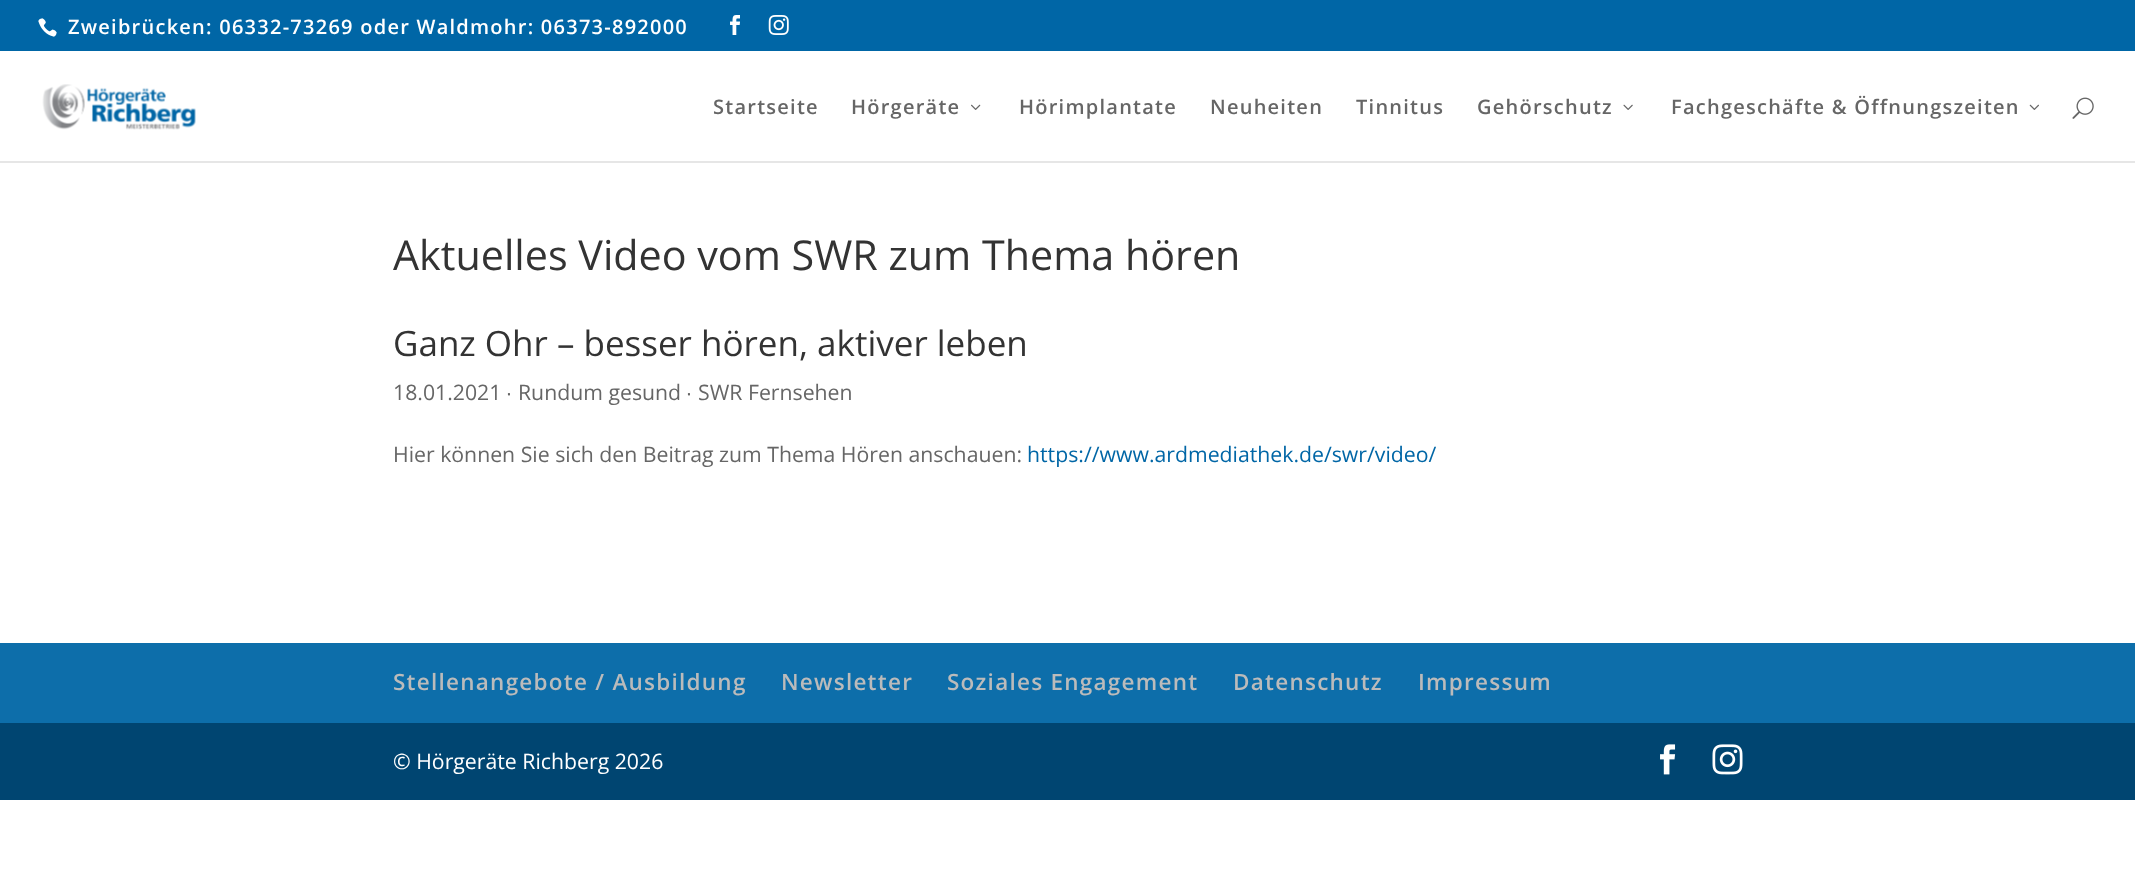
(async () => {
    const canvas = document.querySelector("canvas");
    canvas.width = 2135;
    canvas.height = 879;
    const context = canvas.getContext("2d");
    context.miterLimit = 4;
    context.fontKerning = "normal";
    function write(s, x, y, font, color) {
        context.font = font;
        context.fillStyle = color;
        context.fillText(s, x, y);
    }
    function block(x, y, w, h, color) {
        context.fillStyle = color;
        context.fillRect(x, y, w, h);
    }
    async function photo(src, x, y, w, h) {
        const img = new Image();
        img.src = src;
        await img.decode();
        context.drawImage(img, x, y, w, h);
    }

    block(0, 0, 2135, 879, "rgb(255, 255, 255)");
    block(0, 0, 2135, 51, "rgb(0, 102, 166)");
    await photo("media/1.png", 38, 18, 19, 19);
    context.letterSpacing = "1.25px";
    write("Zweibrücken: 06332-73269 oder Waldmohr: 06373-892000", 68, 34, "600 20px Open Sans", "rgb(255, 255, 255)");
    await photo("media/2.png", 730, 15, 10, 20);
    await photo("media/3.png", 768, 15, 21, 20);
    block(0, 161, 2135, 2, "rgb(230, 230, 230)");
    await photo("media/4.png", 42, 84, 154, 46);
    write("Startseite", 713, 114, "600 20px Open Sans", "rgb(102, 102, 102)");
    write("Hörgeräte", 851, 114, "600 20px Open Sans", "rgb(102, 102, 102)");
    await photo("media/5.png", 971, 104, 10, 6);
    write("Hörimplantate", 1019, 114, "600 20px Open Sans", "rgb(102, 102, 102)");
    write("Neuheiten", 1210, 114, "600 20px Open Sans", "rgb(102, 102, 102)");
    write("Tinnitus", 1356, 114, "600 20px Open Sans", "rgb(102, 102, 102)");
    write("Gehörschutz", 1477, 114, "600 20px Open Sans", "rgb(102, 102, 102)");
    await photo("media/6.png", 1623, 104, 10, 6);
    write("Fachgeschäfte & Öffnungszeiten", 1671, 114, "600 20px Open Sans", "rgb(102, 102, 102)");
    await photo("media/7.png", 2029, 104, 10, 6);
    await photo("media/8.png", 2072, 97, 22, 22);
    context.letterSpacing = "0px";
    write("Aktuelles Video vom SWR zum Thema hören", 393, 270, "41.25px Open Sans", "rgb(51, 51, 51)");
    write("Ganz Ohr – besser hören, aktiver leben", 393, 356, "35px Open Sans", "rgb(51, 51, 51)");
    write("18.01.2021", 393, 400, "21.25px Open Sans", "rgb(102, 102, 102)");
    write("∙", 506, 400, "21.25px Liberation Sans", "rgb(102, 102, 102)");
    write("Rundum gesund", 518, 400, "21.25px Open Sans", "rgb(102, 102, 102)");
    write("∙", 686, 400, "21.25px Liberation Sans", "rgb(102, 102, 102)");
    write("SWR Fernsehen", 698, 400, "21.25px Open Sans", "rgb(102, 102, 102)");
    write("Hier können Sie sich den Beitrag zum Thema Hören anschauen:", 393, 462, "21.25px Open Sans", "rgb(102, 102, 102)");
    write("https://www.ardmediathek.de/swr/video/", 1027, 462, "21.25px Open Sans", "rgb(0, 102, 166)");
    block(0, 643, 2135, 80, "rgb(13, 110, 170)");
    context.letterSpacing = "1.25px";
    write("Stellenangebote / Ausbildung", 393, 690, "600 22.5px Open Sans", "rgb(187, 187, 187)");
    write("Newsletter", 781, 690, "600 22.5px Open Sans", "rgb(187, 187, 187)");
    write("Soziales Engagement", 947, 690, "600 22.5px Open Sans", "rgb(187, 187, 187)");
    write("Datenschutz", 1233, 690, "600 22.5px Open Sans", "rgb(187, 187, 187)");
    write("Impressum", 1418, 690, "600 22.5px Open Sans", "rgb(187, 187, 187)");
    block(0, 723, 2135, 77, "rgb(0, 69, 113)");
    context.letterSpacing = "0px";
    write("© Hörgeräte Richberg 2026", 393, 769, "21.25px Open Sans", "rgb(255, 255, 255)");
    await photo("media/9.png", 1660, 744, 16, 31);
    await photo("media/10.png", 1712, 744, 31, 31);
})();
